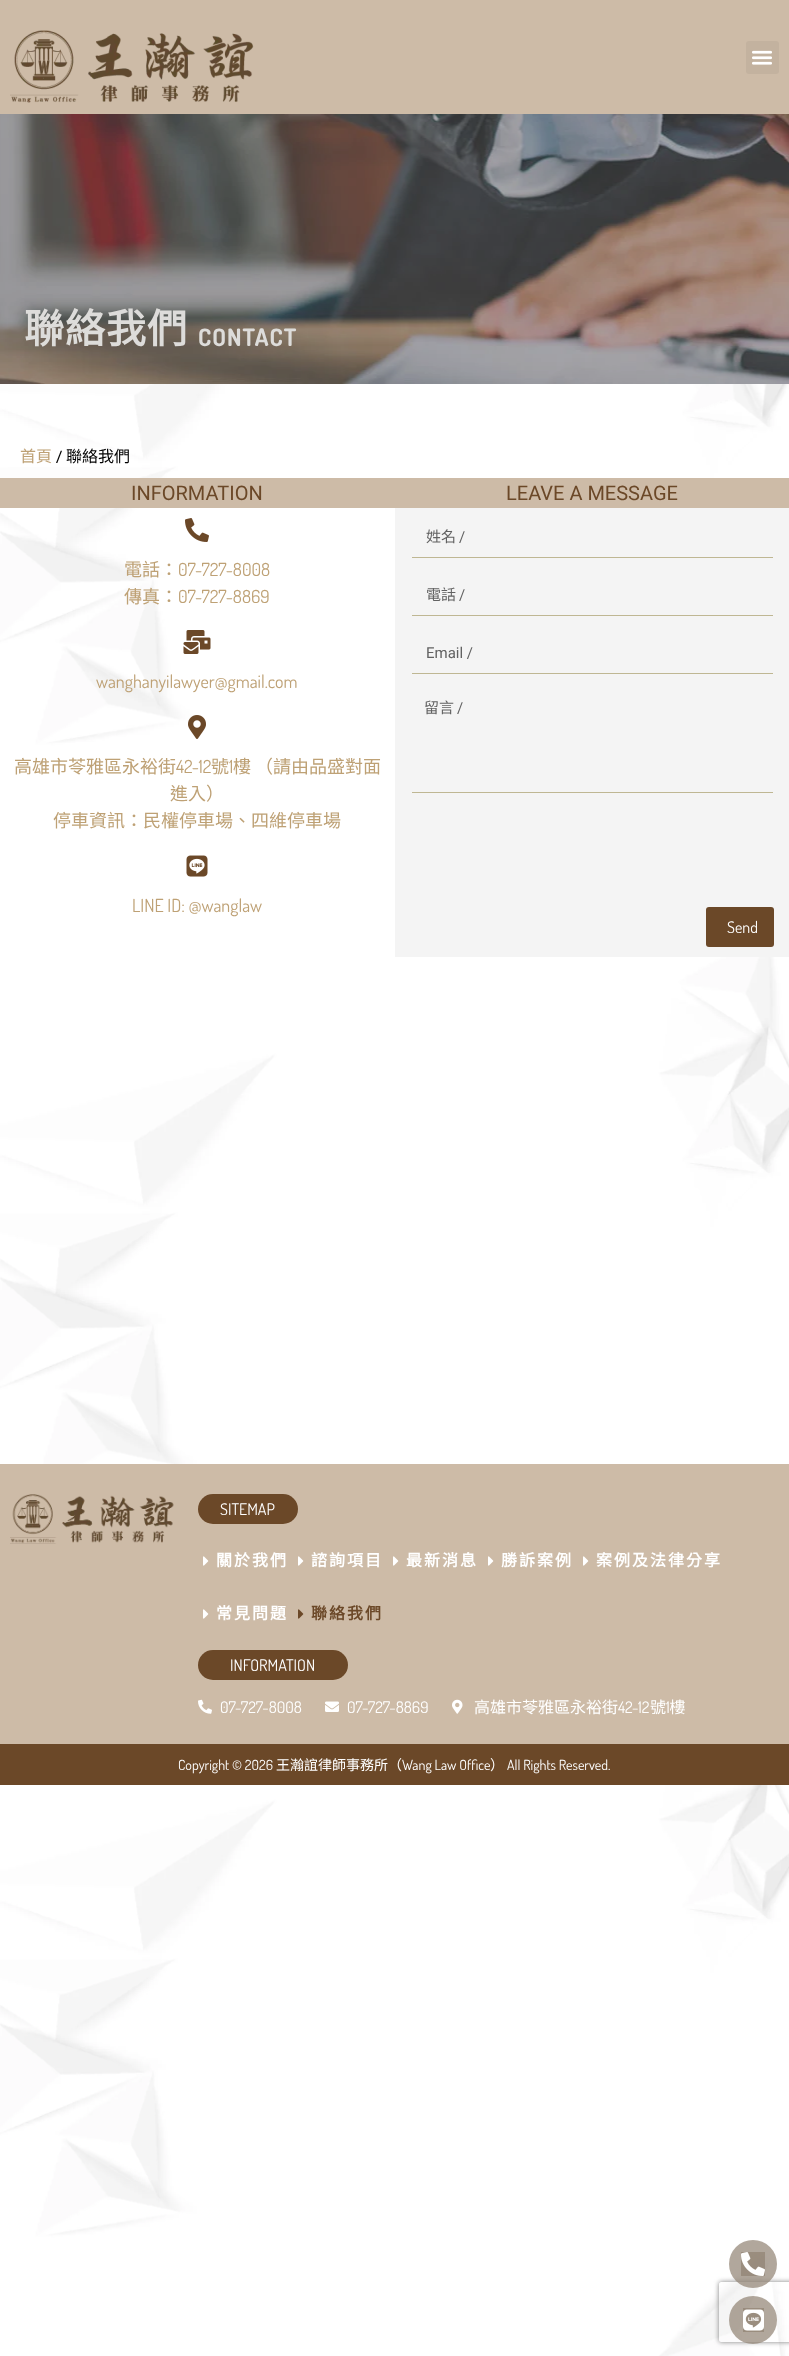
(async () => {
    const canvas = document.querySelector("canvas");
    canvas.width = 789;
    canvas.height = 2356;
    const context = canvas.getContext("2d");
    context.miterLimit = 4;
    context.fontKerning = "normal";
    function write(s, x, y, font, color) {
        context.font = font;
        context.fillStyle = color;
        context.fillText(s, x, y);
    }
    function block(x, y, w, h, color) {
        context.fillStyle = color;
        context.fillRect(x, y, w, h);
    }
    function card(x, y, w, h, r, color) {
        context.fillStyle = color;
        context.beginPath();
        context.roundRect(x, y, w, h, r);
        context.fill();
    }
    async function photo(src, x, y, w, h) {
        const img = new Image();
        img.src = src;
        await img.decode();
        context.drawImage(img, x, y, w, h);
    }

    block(0, 0, 789, 2356, "rgb(255, 255, 255)");
    await photo("media/1.png", 0, 384, 789, 1972);
    block(0, 0, 789, 114, "rgb(205, 187, 167)");
    await photo("media/2.png", 10, 30, 244, 73);
    card(746, 41, 33, 33, 3, "rgb(195, 178, 159)");
    await photo("media/3.png", 752, 50, 20, 15);
    await photo("media/4.png", 0, 114, 789, 270);
    context.letterSpacing = "1px";
    write("聯絡我們", 24, 343, "bold 40px Noto Sans CJK TC", "rgb(221, 220, 218)");
    write("CONTACT", 198, 346, "bold 24px Dosis", "rgb(221, 220, 218)");
    context.letterSpacing = "0px";
    write("首頁", 20, 462, "16px Noto Sans CJK TC", "rgb(190, 161, 117)");
    write("/", 56, 462, "16px Roboto Slab", "rgb(0, 0, 0)");
    write("聯絡我們", 66, 462, "16px Noto Sans CJK TC", "rgb(0, 0, 0)");
    block(0, 478, 789, 30, "rgb(205, 187, 167)");
    write("INFORMATION", 131, 500, "20px Roboto", "rgb(107, 72, 40)");
    await photo("media/5.png", 185, 518, 24, 24);
    write("電話：", 124, 576, "18px Noto Sans CJK TC", "rgb(190, 161, 117)");
    write("07-727-8008", 178, 576, "18px Dosis", "rgb(190, 161, 117)");
    write("傳真：", 124, 603, "18px Noto Sans CJK TC", "rgb(190, 161, 117)");
    write("07-727-8869", 178, 603, "18px Dosis", "rgb(190, 161, 117)");
    await photo("media/6.png", 183, 630, 28, 24);
    write("wanghanyilawyer@gmail.com", 96, 688, "18px Dosis", "rgb(190, 161, 117)");
    await photo("media/7.png", 188, 715, 18, 24);
    write("高雄市苓雅區永裕街", 14, 773, "18px Noto Sans CJK TC", "rgb(190, 161, 117)");
    write("42-12", 176, 773, "18px Dosis", "rgb(190, 161, 117)");
    write("號 樓", 211, 773, "18px Noto Sans CJK TC", "rgb(190, 161, 117)");
    write("（請由品盛對面", 255, 773, "18px Noto Sans CJK TC", "rgb(190, 161, 117)");
    write("1", 229, 773, "18px Dosis", "rgb(190, 161, 117)");
    write("進入）", 170, 800, "18px Noto Sans CJK TC", "rgb(190, 161, 117)");
    write("停車資訊：民權停車場、四維停車場", 53, 827, "18px Noto Sans CJK TC", "rgb(190, 161, 117)");
    await photo("media/8.png", 186, 855, 22, 22);
    write("LINE ID: @wanglaw", 132, 912, "18px Dosis", "rgb(190, 161, 117)");
    write("LEAVE A MESSAGE", 506, 500, "20px Roboto", "rgb(107, 72, 40)");
    block(395, 508, 394, 449, "rgb(244, 244, 244)");
    block(412, 557, 361, 1, "rgb(191, 183, 147)");
    write("姓名", 426, 542, "15px Noto Sans CJK TC", "rgb(98, 98, 98)");
    write("/", 459, 542, "15px Roboto", "rgb(98, 98, 98)");
    block(412, 615, 361, 1, "rgb(191, 183, 147)");
    write("電話", 426, 600, "15px Noto Sans CJK TC", "rgb(98, 98, 98)");
    write("/", 459, 600, "15px Roboto", "rgb(98, 98, 98)");
    block(412, 673, 361, 1, "rgb(191, 183, 147)");
    write("Email /", 426, 658, "15px Roboto", "rgb(98, 98, 98)");
    block(412, 792, 361, 1, "rgb(191, 183, 147)");
    write("留言", 424, 713, "15px Noto Sans CJK TC", "rgb(98, 98, 98)");
    write("/", 457, 713, "15px Roboto", "rgb(98, 98, 98)");
    card(706, 907, 68, 40, 3, "rgb(107, 72, 40)");
    write("Send", 727, 933, "16px Dosis", "rgb(255, 255, 255)");
    block(0, 1464, 789, 280, "rgb(205, 187, 167)");
    await photo("media/9.png", 10, 1494, 164, 50);
    card(198, 1494, 100, 30, 15, "rgb(107, 72, 40)");
    write("SITEMAP", 220, 1515, "16px Dosis", "rgb(255, 255, 255)");
    await photo("media/10.png", 203, 1556, 6, 10);
    context.letterSpacing = "2px";
    write("關於我們", 216, 1566, "bold 16px Noto Sans CJK TC", "rgb(255, 255, 255)");
    await photo("media/10.png", 298, 1556, 6, 10);
    write("諮詢項目", 311, 1566, "bold 16px Noto Sans CJK TC", "rgb(255, 255, 255)");
    await photo("media/10.png", 393, 1556, 6, 10);
    write("最新消息", 406, 1566, "bold 16px Noto Sans CJK TC", "rgb(255, 255, 255)");
    await photo("media/10.png", 488, 1556, 6, 10);
    write("勝訴案例", 501, 1566, "bold 16px Noto Sans CJK TC", "rgb(255, 255, 255)");
    await photo("media/10.png", 583, 1556, 6, 10);
    write("案例及法律分享", 596, 1566, "bold 16px Noto Sans CJK TC", "rgb(255, 255, 255)");
    await photo("media/10.png", 203, 1609, 6, 10);
    write("常見問題", 216, 1619, "bold 16px Noto Sans CJK TC", "rgb(255, 255, 255)");
    await photo("media/11.png", 298, 1609, 6, 10);
    write("聯絡我們", 311, 1619, "bold 16px Noto Sans CJK TC", "rgb(107, 72, 40)");
    card(198, 1650, 150, 30, 15, "rgb(107, 72, 40)");
    context.letterSpacing = "0px";
    write("INFORMATION", 230, 1671, "16px Dosis", "rgb(255, 255, 255)");
    await photo("media/12.png", 198, 1699, 14, 15);
    write("07-727-8008", 220, 1713, "16px Dosis", "rgb(255, 255, 255)");
    await photo("media/13.png", 325, 1701, 14, 11);
    write("07-727-8869", 347, 1713, "16px Dosis", "rgb(255, 255, 255)");
    await photo("media/14.png", 452, 1699, 11, 15);
    write("高雄市苓雅區永裕街", 474, 1713, "16px Noto Sans CJK TC", "rgb(255, 255, 255)");
    write("42-12", 618, 1713, "16px Dosis", "rgb(255, 255, 255)");
    write("號 樓", 650, 1713, "16px Noto Sans CJK TC", "rgb(255, 255, 255)");
    write("1", 666, 1713, "16px Dosis", "rgb(255, 255, 255)");
    block(0, 1744, 789, 41, "rgb(107, 72, 40)");
    write("Copyright © 2026", 178, 1770, "14px Dosis", "rgb(255, 255, 255)");
    write("王瀚誼律師事務所（", 276, 1770, "14px Noto Sans CJK TC", "rgb(255, 255, 255)");
    write("Wang Law Office", 402, 1770, "14px Dosis", "rgb(255, 255, 255)");
    write("）", 490, 1770, "14px Noto Sans CJK TC", "rgb(255, 255, 255)");
    write("All Rights Reserved.", 507, 1770, "14px Dosis", "rgb(255, 255, 255)");
    context.save();
    context.beginPath();
    context.moveTo(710, 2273);
    context.lineTo(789, 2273);
    context.lineTo(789, 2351);
    context.lineTo(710, 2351);
    context.closePath();
    context.moveTo(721, 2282);
    context.lineTo(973, 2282);
    context.bezierCurveTo(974, 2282, 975, 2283, 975, 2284);
    context.lineTo(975, 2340);
    context.bezierCurveTo(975, 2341, 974, 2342, 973, 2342);
    context.lineTo(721, 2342);
    context.bezierCurveTo(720, 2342, 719, 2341, 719, 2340);
    context.lineTo(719, 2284);
    context.bezierCurveTo(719, 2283, 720, 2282, 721, 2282);
    context.closePath();
    context.clip("evenodd");
    context.fillStyle = "rgb(128, 128, 128)";
    context.filter = "blur(2.5px)";
    context.beginPath();
    context.roundRect(719, 2282, 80, 60, 2);
    context.fill();
    context.filter = "none";
    context.restore();
    context.fillStyle = "rgba(144, 130, 114, 0.7)";
    context.beginPath();
    context.arc(753, 2264, 24, 0, Math.PI * 2);
    context.fill();
    block(741, 2252, 24, 24, "rgba(144, 130, 114, 0.7)");
    await photo("media/15.png", 741, 2252, 24, 24);
    context.beginPath();
    context.arc(753, 2320, 24, 0, Math.PI * 2);
    context.fill();
    block(743, 2308, 21, 24, "rgba(144, 130, 114, 0.7)");
    await photo("media/16.png", 743, 2309, 21, 22);
})();
